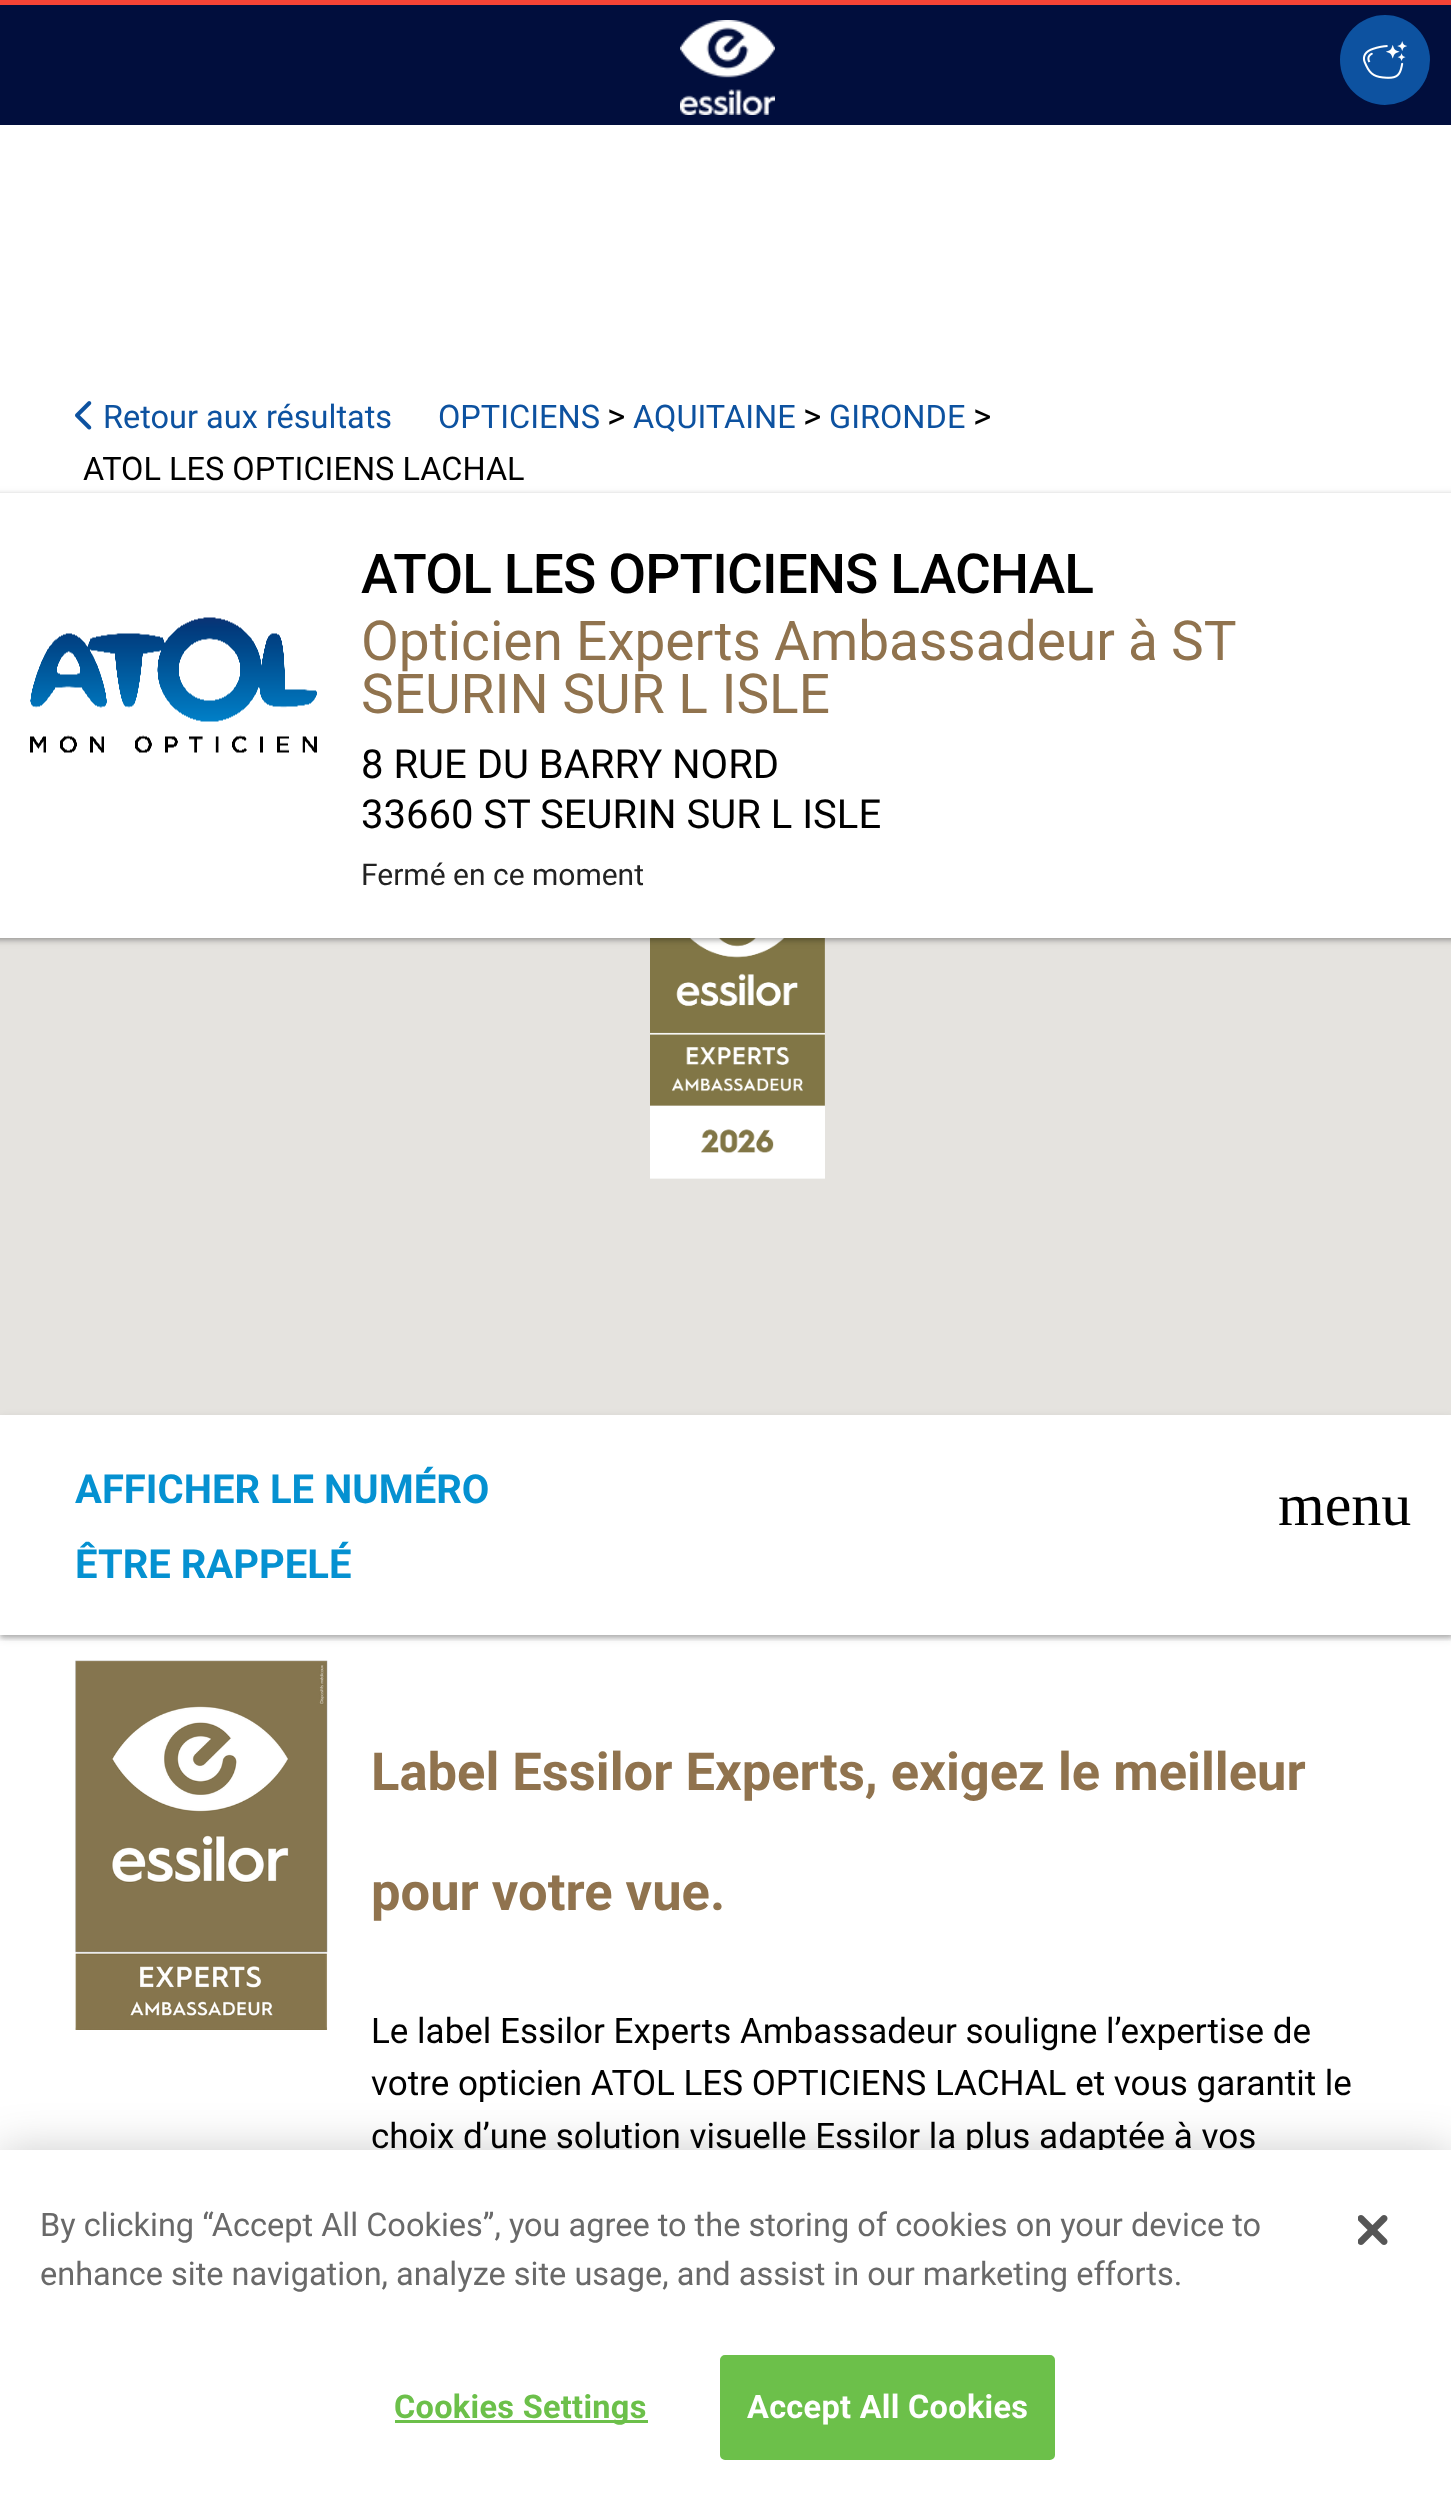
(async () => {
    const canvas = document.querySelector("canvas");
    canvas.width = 1451;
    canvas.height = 2499;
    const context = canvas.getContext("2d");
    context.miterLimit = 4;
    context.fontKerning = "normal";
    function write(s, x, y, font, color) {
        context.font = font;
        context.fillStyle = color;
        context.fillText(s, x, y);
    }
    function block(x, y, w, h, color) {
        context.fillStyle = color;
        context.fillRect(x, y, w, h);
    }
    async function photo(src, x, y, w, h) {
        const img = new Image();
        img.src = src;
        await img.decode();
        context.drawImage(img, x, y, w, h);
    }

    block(0, 0, 1451, 2499, "rgb(255, 255, 255)");
    block(0, 0, 1451, 5, "rgb(244, 67, 54)");
    block(0, 5, 1451, 120, "rgb(1, 14, 61)");
    await photo("media/1.png", 680, 20, 95, 95);
    context.fillStyle = "rgb(13, 82, 160)";
    context.beginPath();
    context.arc(1385, 60, 45, 0, Math.PI * 2);
    context.fill();
    await photo("media/2.png", 1362, 41, 45, 38);
    await photo("media/3.png", 75, 401, 17, 29);
    write("Retour aux résultats", 103, 428, "32.5px Roboto", "rgb(13, 82, 160)");
    write("OPTICIENS", 438, 428, "32.5px Roboto", "rgb(13, 82, 160)");
    write(">", 607, 428, "35px Roboto", "rgb(0, 0, 0)");
    write("AQUITAINE", 633, 428, "32.5px Roboto", "rgb(13, 82, 160)");
    write(">", 803, 428, "35px Roboto", "rgb(0, 0, 0)");
    write("GIRONDE", 829, 428, "32.5px Roboto", "rgb(13, 82, 160)");
    write(">", 973, 428, "35px Roboto", "rgb(0, 0, 0)");
    write("ATOL LES OPTICIENS LACHAL", 83, 480, "32.5px Roboto", "rgb(0, 0, 0)");
    block(0, 938, 1451, 477, "rgb(229, 227, 223)");
    await photo("media/5.png", 650, 938, 175, 241);
    context.fillStyle = "rgba(0, 0, 0, 0.24)";
    context.filter = "blur(2.5px)";
    context.beginPath();
    context.rect(-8, 495, 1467, 445);
    context.fill();
    context.filter = "none";
    context.fillStyle = "rgba(0, 0, 0, 0.12)";
    context.filter = "blur(4px)";
    context.beginPath();
    context.rect(-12, 495, 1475, 445);
    context.fill();
    context.filter = "none";
    block(0, 493, 1451, 445, "rgb(255, 255, 255)");
    await photo("media/4.png", 30, 617, 287, 136);
    context.letterSpacing = "-0.85px";
    write("ATOL LES OPTICIENS LACHAL", 361, 593, "500 55px Roboto", "rgb(0, 0, 0)");
    context.letterSpacing = "0px";
    context.wordSpacing = "-0.5px";
    write("Opticien Experts Ambassadeur à ST", 361, 660, "55px Roboto", "rgb(144, 115, 78)");
    context.wordSpacing = "0px";
    write("SEURIN SUR L ISLE", 361, 713, "55px Roboto", "rgb(144, 115, 78)");
    write("8 RUE DU BARRY NORD", 361, 778, "40px Roboto", "rgb(0, 0, 0)");
    write("33660 ST SEURIN SUR L ISLE", 361, 828, "40px Roboto", "rgb(0, 0, 0)");
    write("Fermé en ce moment", 361, 885, "30px Roboto", "rgb(34, 34, 34)");
    context.save();
    context.beginPath();
    context.rect(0, 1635, 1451, 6);
    context.clip();
    context.fillStyle = "rgba(0, 0, 0, 0.24)";
    context.filter = "blur(2.5px)";
    context.beginPath();
    context.rect(0, 1418, 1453, 220);
    context.fill();
    context.filter = "none";
    context.restore();
    context.save();
    context.beginPath();
    context.moveTo(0, 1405);
    context.lineTo(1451, 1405);
    context.lineTo(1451, 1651);
    context.lineTo(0, 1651);
    context.closePath();
    context.moveTo(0, 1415);
    context.lineTo(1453, 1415);
    context.lineTo(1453, 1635);
    context.lineTo(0, 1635);
    context.closePath();
    context.clip("evenodd");
    context.fillStyle = "rgba(0, 0, 0, 0.12)";
    context.filter = "blur(4px)";
    context.beginPath();
    context.rect(0, 1418, 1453, 220);
    context.fill();
    context.filter = "none";
    context.restore();
    write("AFFICHER LE NUMÉRO", 75, 1503, "bold 40px Roboto", "rgb(5, 145, 209)");
    write("ÊTRE RAPPELÉ", 75, 1578, "bold 40px Roboto", "rgb(5, 145, 209)");
    write("menu", 1278, 1525, "60px Liberation Serif", "rgb(0, 0, 0)");
    await photo("media/6.png", 75, 1660, 253, 370);
    write("Label Essilor Experts, exigez le meilleur", 371, 1790, "bold 52.5px Roboto", "rgb(144, 115, 78)");
    write("pour votre vue.", 371, 1910, "bold 52.5px Roboto", "rgb(144, 115, 78)");
    write("Le label Essilor Experts Ambassadeur souligne l’expertise de", 371, 2043, "35px Roboto", "rgb(0, 0, 0)");
    write("votre opticien ATOL LES OPTICIENS LACHAL et vous garantit le", 371, 2095, "35px Roboto", "rgb(0, 0, 0)");
    write("choix d’une solution visuelle Essilor la plus adaptée à vos", 371, 2148, "35px Roboto", "rgb(0, 0, 0)");
    context.fillStyle = "rgba(0, 0, 0, 0.2)";
    context.filter = "blur(22.5px)";
    context.beginPath();
    context.rect(0, 2150, 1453, 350);
    context.fill();
    context.filter = "none";
    block(0, 2150, 1451, 349, "rgb(255, 255, 255)");
    write("By clicking “Accept All Cookies”, you agree to the storing of cookies on your device to", 40, 2236, "32.5px Roboto", "rgb(105, 105, 105)");
    write("enhance site navigation, analyze site usage, and assist in our marketing efforts.", 40, 2285, "32.5px Roboto", "rgb(105, 105, 105)");
    block(395, 2420, 253, 3, "rgb(108, 192, 74)");
    context.letterSpacing = "0.3px";
    write("Cookies Settings", 394, 2418, "bold 32.5px Roboto", "rgb(108, 192, 74)");
    context.beginPath();
    context.roundRect(721.5, 2356.5, 332, 102, 3.5);
    context.fill();
    context.strokeStyle = "rgb(108, 192, 74)";
    context.lineWidth = 3;
    context.stroke();
    write("Accept All Cookies", 747, 2418, "bold 32.5px Roboto", "rgb(255, 255, 255)");
    await photo("media/7.png", 1358, 2215, 30, 30);
})();
